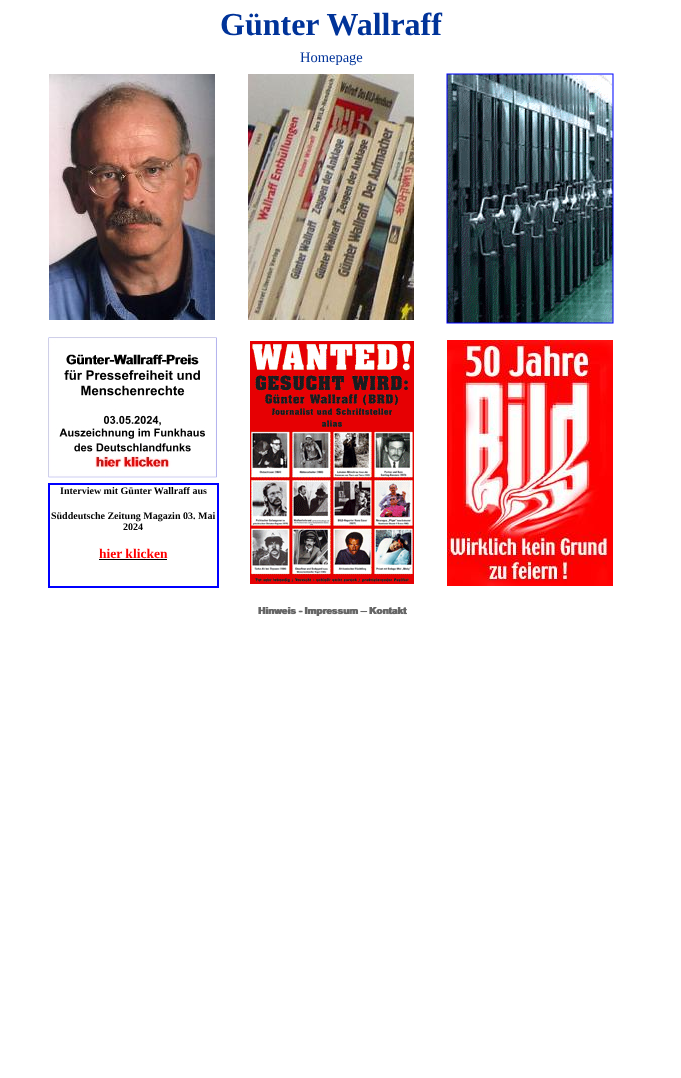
(async () => {
    const canvas = document.querySelector("canvas");
    canvas.width = 681;
    canvas.height = 1078;
    const context = canvas.getContext("2d");
    context.miterLimit = 4;
    context.fontKerning = "normal";
    function write(s, x, y, font, color) {
        context.font = font;
        context.fillStyle = color;
        context.fillText(s, x, y);
    }
    function block(x, y, w, h, color) {
        context.fillStyle = color;
        context.fillRect(x, y, w, h);
    }
    async function photo(src, x, y, w, h) {
        const img = new Image();
        img.src = src;
        await img.decode();
        context.drawImage(img, x, y, w, h);
    }

    block(0, 0, 681, 1078, "rgb(255, 255, 255)");
    write("Günter Wallraff", 220, 35, "bold 32px Liberation Serif", "rgb(0, 51, 153)");
    write("Homepage", 300, 62, "14.5px Liberation Serif", "rgb(0, 51, 153)");
    await photo("media/1.png", 49, 74, 166, 246);
    await photo("media/2.png", 248, 74, 166, 246);
    await photo("media/3.png", 446, 73, 168, 251);
    await photo("media/4.png", 48, 337, 169, 141);
    await photo("media/5.png", 250, 341, 164, 243);
    await photo("media/6.png", 447, 340, 166, 246);
    context.strokeStyle = "rgb(0, 0, 255)";
    context.lineWidth = 2;
    context.strokeRect(49, 484, 169, 103);
    write("Interview mit Günter Wallraff aus", 60, 494, "bold 10px Liberation Serif", "rgb(0, 0, 0)");
    write("Süddeutsche Zeitung Magazin 03. Mai", 51, 519, "bold 10px Liberation Serif", "rgb(0, 0, 0)");
    write("2024", 123, 530, "bold 10px Liberation Serif", "rgb(0, 0, 0)");
    write("hier klicken", 99, 558, "bold 13.5px Liberation Serif", "rgb(255, 0, 0)");
    block(99, 559, 68, 1, "rgb(0, 0, 0)");
    await photo("media/7.png", 258, 607, 149, 9);
})();
